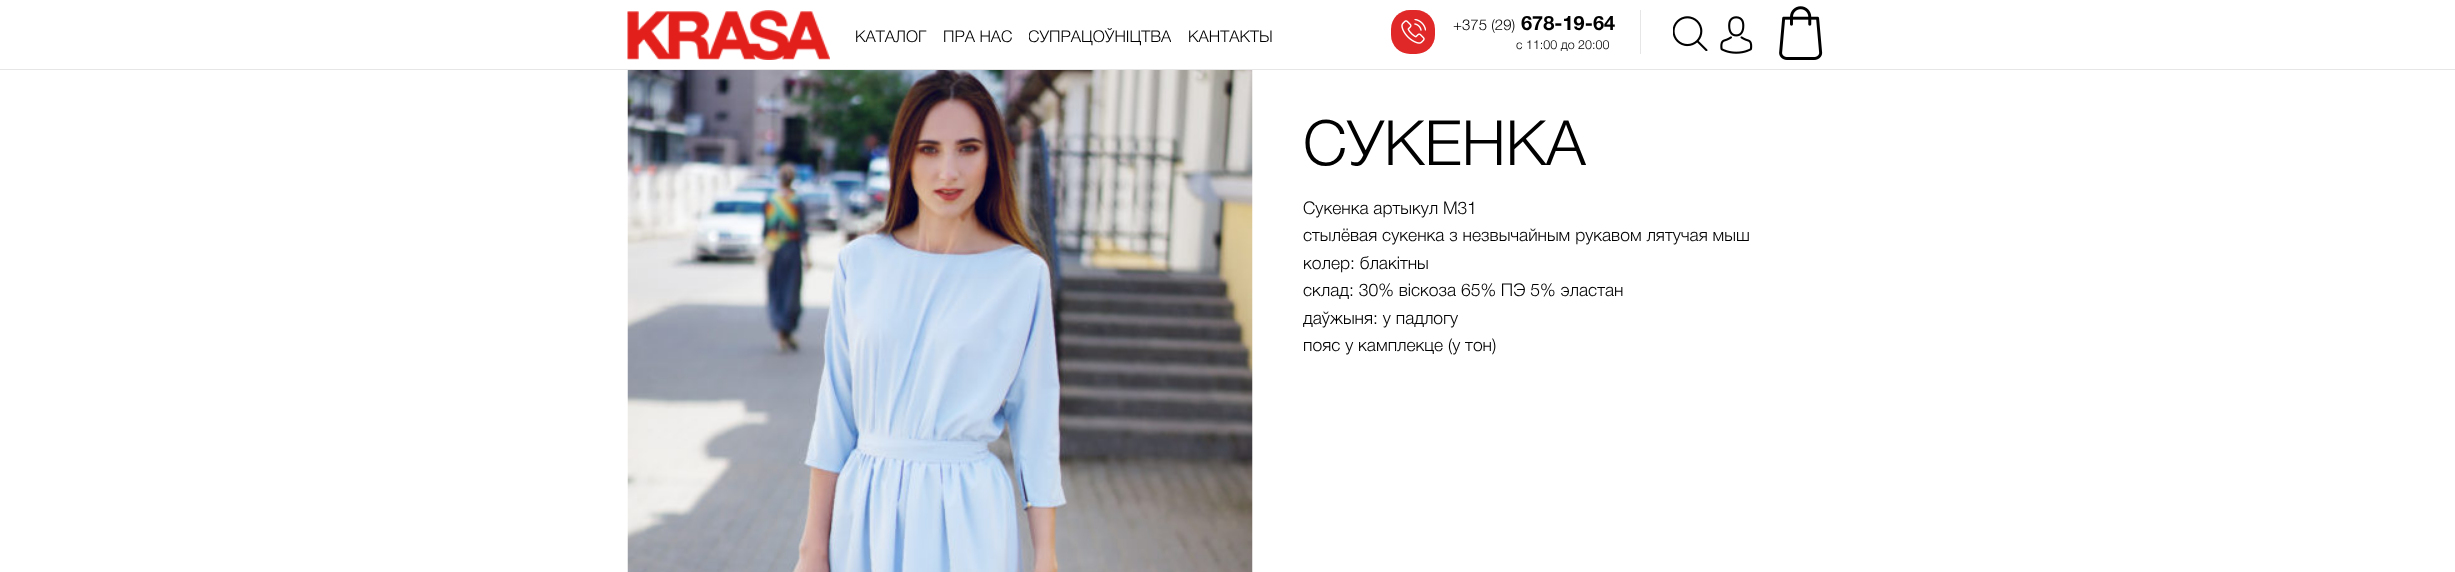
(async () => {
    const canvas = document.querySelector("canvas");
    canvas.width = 2455;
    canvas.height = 572;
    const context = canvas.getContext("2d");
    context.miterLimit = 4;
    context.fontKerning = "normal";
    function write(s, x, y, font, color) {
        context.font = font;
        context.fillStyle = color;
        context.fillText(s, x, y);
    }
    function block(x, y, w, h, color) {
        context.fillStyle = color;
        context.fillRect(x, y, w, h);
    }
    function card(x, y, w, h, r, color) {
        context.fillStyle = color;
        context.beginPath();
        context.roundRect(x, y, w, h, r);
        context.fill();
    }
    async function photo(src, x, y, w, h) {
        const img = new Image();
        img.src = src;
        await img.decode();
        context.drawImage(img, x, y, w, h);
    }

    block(0, 0, 2455, 572, "rgb(255, 255, 255)");
    block(0, 69, 2455, 1, "rgb(230, 230, 230)");
    await photo("media/1.png", 627, 10, 203, 50);
    write("КАТАЛОГ", 855, 42, "300 16.25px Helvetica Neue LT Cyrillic", "rgb(0, 0, 0)");
    write("ПРА НАС", 943, 42, "300 16.25px Helvetica Neue LT Cyrillic", "rgb(0, 0, 0)");
    context.save();
    context.beginPath();
    context.rect(1029, 28, 142, 20);
    context.clip();
    write("СУПРАЦОЎНІЦТВА", 1028, 42, "300 16.25px Helvetica Neue LT Cyrillic", "rgb(0, 0, 0)");
    context.restore();
    write("КАНТАКТЫ", 1188, 42, "300 16.25px Helvetica Neue LT Cyrillic", "rgb(0, 0, 0)");
    block(1640, 10, 1, 44, "rgb(230, 230, 230)");
    card(1391, 10, 44, 44, 19, "rgb(224, 40, 40)");
    await photo("media/2.png", 1401, 19, 25, 25);
    write("+375 (29)", 1453, 30, "300 15px Helvetica Neue LT Cyrillic", "rgb(0, 0, 0)");
    write("678-19-64", 1521, 30, "bold 20px Helvetica Neue LT Cyrillic", "rgb(0, 0, 0)");
    write("с 11:00 до 20:00", 1516, 49, "300 12.5px Helvetica Neue LT Cyrillic", "rgb(0, 0, 0)");
    await photo("media/3.png", 1673, 16, 35, 35);
    await photo("media/4.png", 1720, 16, 33, 38);
    await photo("media/5.png", 1779, 6, 44, 54);
    await photo("media/6.png", 627, 70, 626, 502);
    write("СУКЕНКА", 1303, 165, "300 62.5px Helvetica Neue LT Cyrillic", "rgb(0, 0, 0)");
    write("Сукенка артыкул М31", 1303, 214, "300 17.5px Helvetica Neue LT Cyrillic", "rgb(0, 0, 0)");
    write("стылёвая сукенка з незвычайным рукавом лятучая мыш", 1303, 241, "300 17.5px Helvetica Neue LT Cyrillic", "rgb(0, 0, 0)");
    write("колер: блакiтны", 1303, 269, "300 17.5px Helvetica Neue LT Cyrillic", "rgb(0, 0, 0)");
    write("склад: 30% віскоза 65% ПЭ 5% эластан", 1303, 296, "300 17.5px Helvetica Neue LT Cyrillic", "rgb(0, 0, 0)");
    write("даўжыня: у падлогу", 1303, 324, "300 17.5px Helvetica Neue LT Cyrillic", "rgb(0, 0, 0)");
    write("пояс у камплекце (у тон)", 1303, 351, "300 17.5px Helvetica Neue LT Cyrillic", "rgb(0, 0, 0)");
})();
